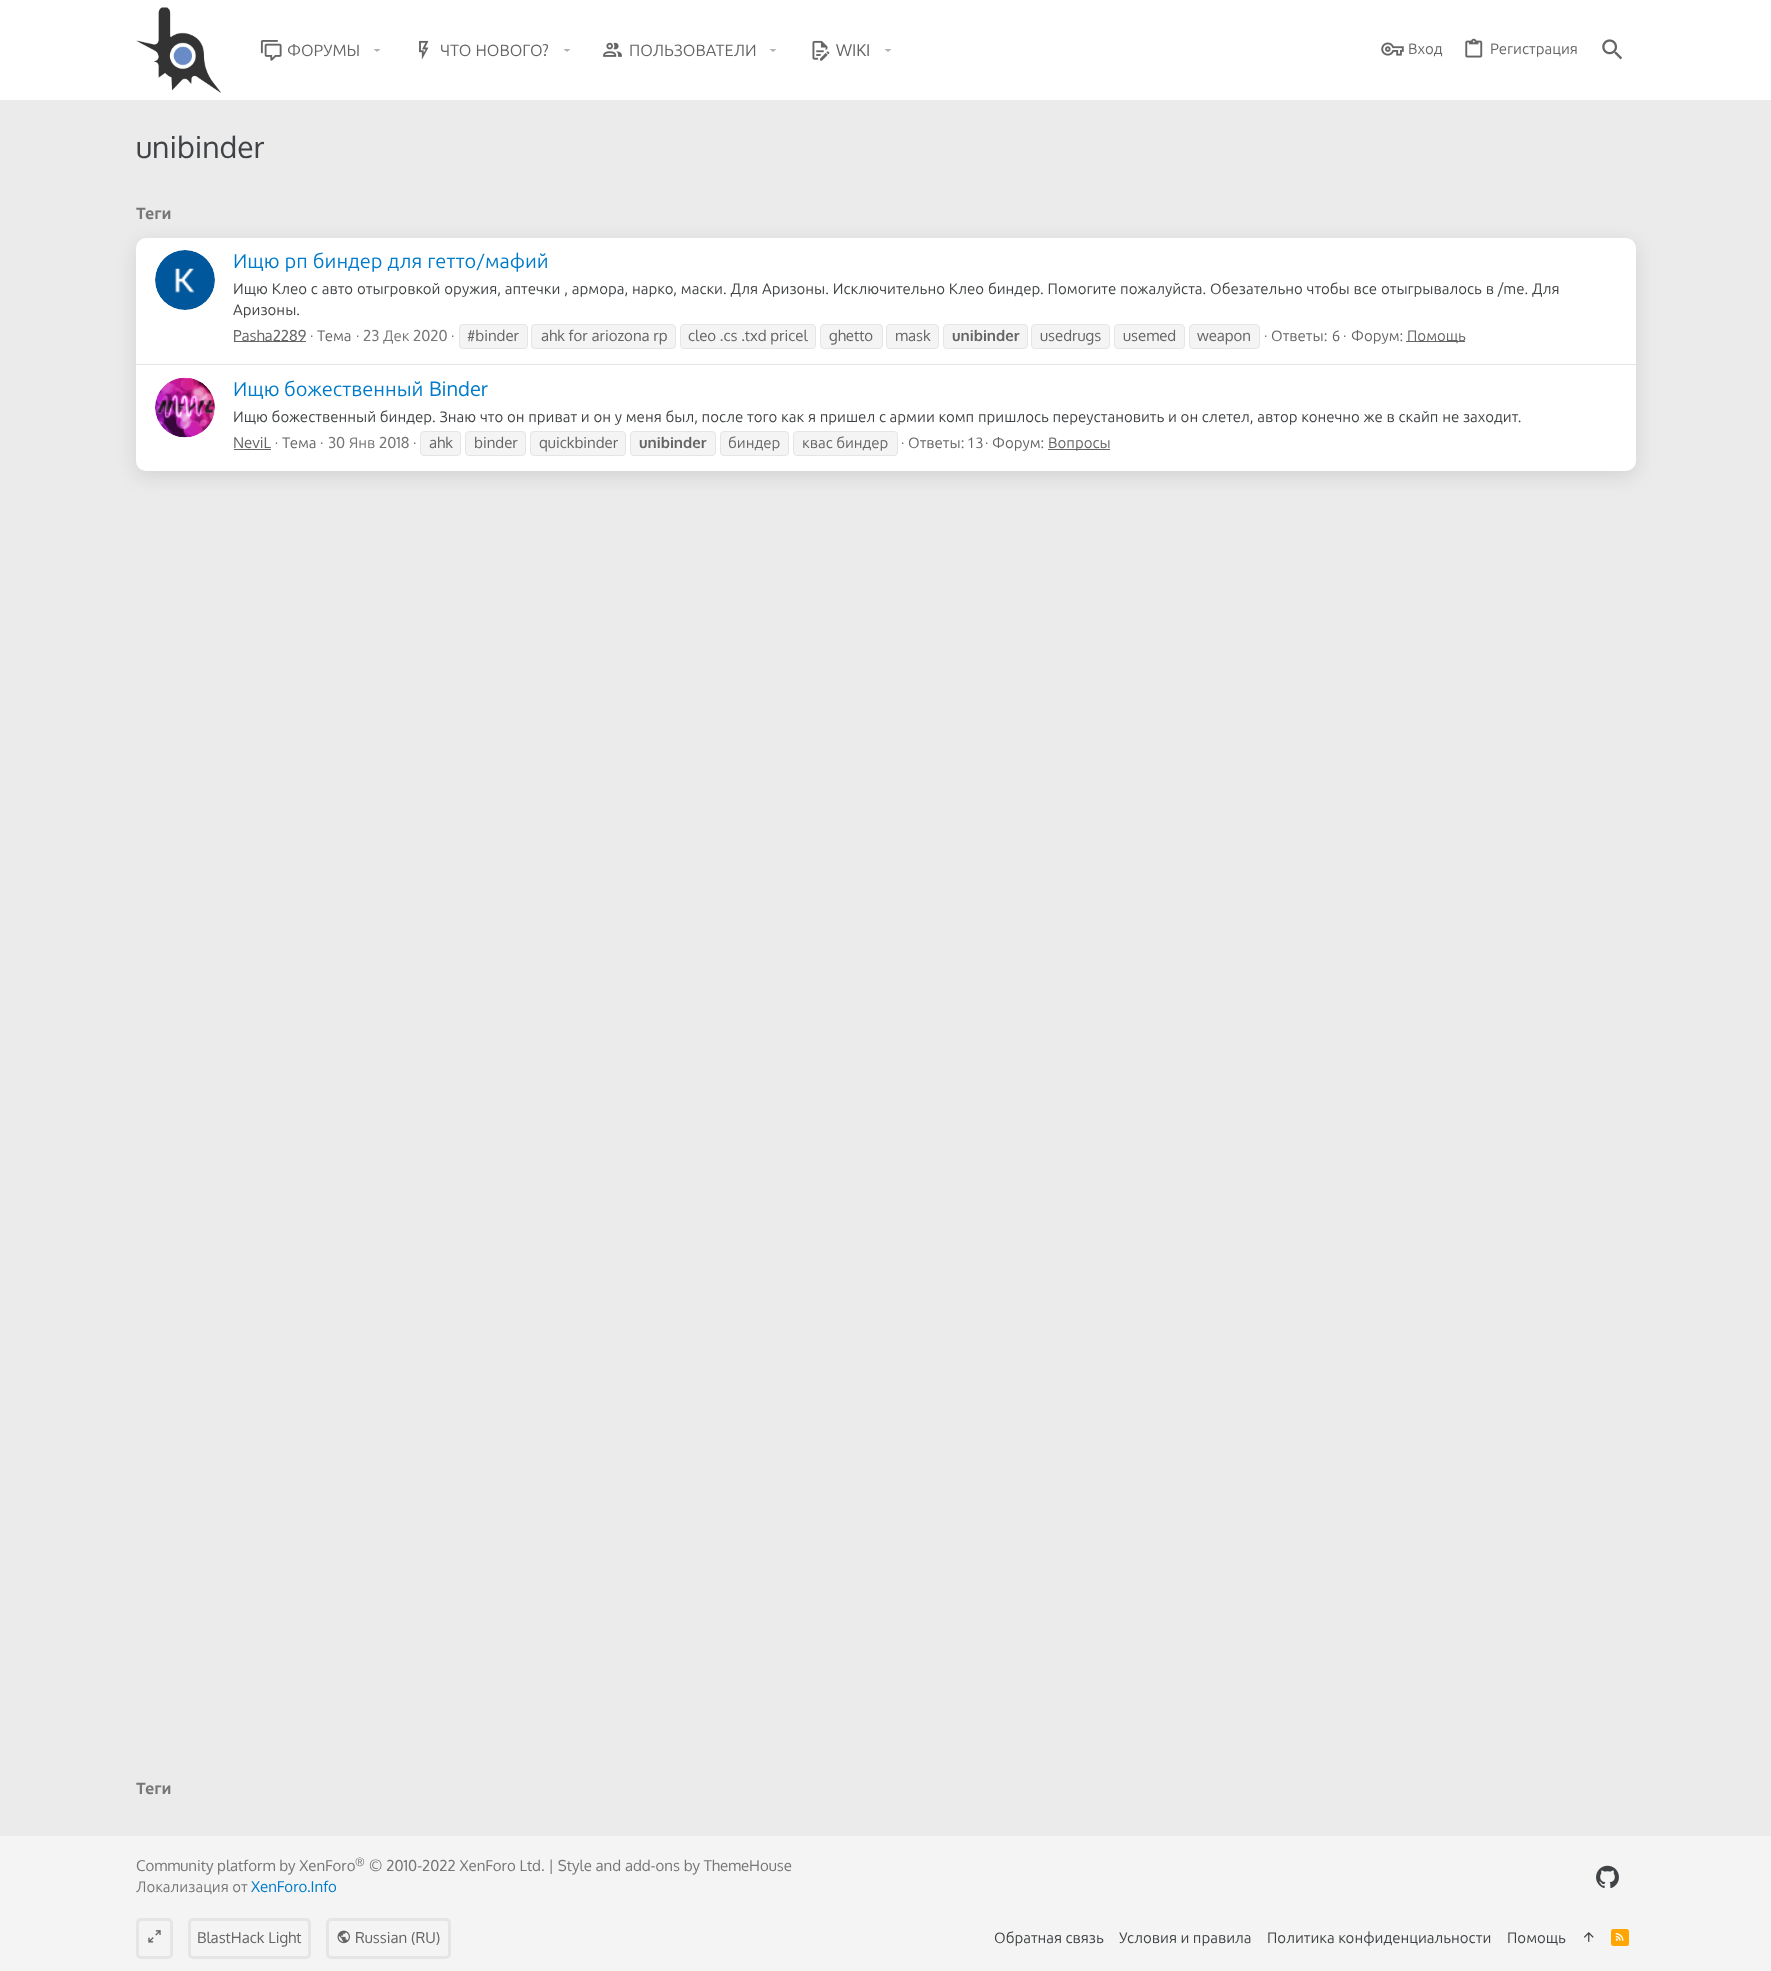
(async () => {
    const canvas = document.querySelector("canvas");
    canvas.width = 1771;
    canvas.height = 1971;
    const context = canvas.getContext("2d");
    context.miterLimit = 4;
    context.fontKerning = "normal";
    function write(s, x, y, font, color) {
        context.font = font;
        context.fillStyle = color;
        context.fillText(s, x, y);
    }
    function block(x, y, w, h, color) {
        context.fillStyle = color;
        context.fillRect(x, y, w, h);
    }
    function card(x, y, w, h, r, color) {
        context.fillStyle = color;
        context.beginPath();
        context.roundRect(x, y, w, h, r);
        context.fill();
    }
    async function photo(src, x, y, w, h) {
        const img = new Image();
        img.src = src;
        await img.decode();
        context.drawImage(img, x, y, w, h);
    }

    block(0, 0, 1771, 1971, "rgb(235, 235, 235)");
    block(0, 0, 1771, 100, "rgb(255, 255, 255)");
    await photo("media/1.png", 136, 7, 86, 86);
    await photo("media/2.png", 260, 40, 22, 21);
    write("ФОРУМЫ", 287, 56, "16.25px Ubuntu", "rgb(101, 101, 101)");
    context.fillStyle = "rgb(178, 178, 178)";
    context.beginPath();
    context.moveTo(373.5, 49);
    context.lineTo(377, 52);
    context.lineTo(380.5, 49);
    context.closePath();
    context.fill();
    await photo("media/3.png", 419, 40, 10, 20);
    context.wordSpacing = "0.3px";
    write("ЧТО НОВОГО", 440, 56, "16.25px Ubuntu", "rgb(101, 101, 101)");
    context.wordSpacing = "0px";
    write("?", 542, 56, "16.25px Oxygen", "rgb(101, 101, 101)");
    context.fillStyle = "rgb(178, 178, 178)";
    context.beginPath();
    context.moveTo(563.5, 49);
    context.lineTo(567, 52);
    context.lineTo(570.5, 49);
    context.closePath();
    context.fill();
    await photo("media/4.png", 603, 42, 19, 15);
    write("ПОЛЬЗОВАТЕЛИ", 629, 56, "16.25px Ubuntu", "rgb(101, 101, 101)");
    context.fillStyle = "rgb(178, 178, 178)";
    context.beginPath();
    context.moveTo(769.5, 49);
    context.lineTo(773, 52);
    context.lineTo(776.5, 49);
    context.closePath();
    context.fill();
    await photo("media/5.png", 812, 40, 18, 21);
    write("WIKI", 836, 56, "16.25px Oxygen", "rgb(101, 101, 101)");
    context.fillStyle = "rgb(178, 178, 178)";
    context.beginPath();
    context.moveTo(884.5, 49);
    context.lineTo(888, 52);
    context.lineTo(891.5, 49);
    context.closePath();
    context.fill();
    await photo("media/6.png", 1381, 42, 23, 14);
    write("Вход", 1408, 54, "15px Ubuntu", "rgb(101, 101, 101)");
    await photo("media/7.png", 1465, 38, 18, 20);
    write("Регистрация", 1490, 54, "15px Ubuntu", "rgb(101, 101, 101)");
    await photo("media/8.png", 1602, 39, 21, 21);
    write("unibinder", 136, 158, "30px Oxygen", "rgb(64, 67, 69)");
    context.fillStyle = "rgba(110, 110, 110, 0.2)";
    context.filter = "blur(9.5px)";
    context.beginPath();
    context.roundRect(136, 243, 1500, 233, 10);
    context.fill();
    context.filter = "none";
    write("Теги", 136, 219, "bold 16.25px Ubuntu", "rgb(118, 118, 118)");
    card(136, 238, 1500, 233, 10, "rgb(255, 255, 255)");
    await photo("media/9.png", 155, 250, 60, 60);
    context.wordSpacing = "0.5px";
    write("Ищю рп биндер для гетто", 233, 268, "20px Ubuntu", "rgb(0, 123, 202)");
    context.wordSpacing = "0px";
    write("/", 476, 268, "20px Oxygen", "rgb(0, 123, 202)");
    write("мафий", 485, 268, "20px Ubuntu", "rgb(0, 123, 202)");
    context.wordSpacing = "0.4px";
    write("Ищю Клео с авто отыгровкой оружия, аптечки , армора, нарко, маски. Для Аризоны. Исключительно Клео биндер. Помогите пожалуйста. Обезательно чтобы все отыгрывалось в /me. Для", 233, 294, "15px Ubuntu", "rgb(64, 67, 69)");
    context.wordSpacing = "0px";
    write("Аризоны.", 233, 315, "15px Ubuntu", "rgb(64, 67, 69)");
    block(234, 341, 72, 1, "rgb(101, 101, 101)");
    write("Pasha2289 ·", 233, 341, "15px Oxygen", "rgb(101, 101, 101)");
    write("Тема", 317, 341, "15px Ubuntu", "rgb(101, 101, 101)");
    write("·", 356, 341, "15px Oxygen", "rgb(101, 101, 101)");
    write("23", 363, 341, "15px Oxygen", "rgb(118, 118, 118)");
    write("Дек", 383, 341, "15px Ubuntu", "rgb(118, 118, 118)");
    write("2020", 413, 341, "15px Oxygen", "rgb(118, 118, 118)");
    write("·", 451, 341, "15px Oxygen", "rgb(101, 101, 101)");
    context.fillStyle = "rgb(244, 244, 244)";
    context.beginPath();
    context.roundRect(459.5, 324.5, 68, 24, 3.5);
    context.fill();
    context.strokeStyle = "rgb(229, 229, 229)";
    context.stroke();
    write("#binder", 467, 341, "15px Oxygen", "rgb(101, 101, 101)");
    context.fillStyle = "rgb(244, 244, 244)";
    context.beginPath();
    context.roundRect(531.5, 324.5, 144, 24, 3.5);
    context.fill();
    context.stroke();
    write("ahk for ariozona rp", 541, 341, "15px Oxygen", "rgb(101, 101, 101)");
    context.fillStyle = "rgb(244, 244, 244)";
    context.beginPath();
    context.roundRect(680.5, 324.5, 135, 24, 3.5);
    context.fill();
    context.stroke();
    write("cleo .cs .txd pricel", 688, 341, "15px Oxygen", "rgb(101, 101, 101)");
    context.fillStyle = "rgb(244, 244, 244)";
    context.beginPath();
    context.roundRect(820.5, 324.5, 62, 24, 3.5);
    context.fill();
    context.stroke();
    write("ghetto", 829, 341, "15px Oxygen", "rgb(101, 101, 101)");
    context.fillStyle = "rgb(244, 244, 244)";
    context.beginPath();
    context.roundRect(886.5, 324.5, 52, 24, 3.5);
    context.fill();
    context.stroke();
    write("mask", 895, 341, "15px Oxygen", "rgb(101, 101, 101)");
    context.fillStyle = "rgb(244, 244, 244)";
    context.beginPath();
    context.roundRect(943.5, 324.5, 84, 24, 3.5);
    context.fill();
    context.stroke();
    write("unibinder", 952, 341, "bold 15px Oxygen", "rgb(101, 101, 101)");
    context.fillStyle = "rgb(244, 244, 244)";
    context.beginPath();
    context.roundRect(1031.5, 324.5, 78, 24, 3.5);
    context.fill();
    context.stroke();
    write("usedrugs", 1040, 341, "15px Oxygen", "rgb(101, 101, 101)");
    context.fillStyle = "rgb(244, 244, 244)";
    context.beginPath();
    context.roundRect(1114.5, 324.5, 70, 24, 3.5);
    context.fill();
    context.stroke();
    write("usemed", 1123, 341, "15px Oxygen", "rgb(101, 101, 101)");
    context.fillStyle = "rgb(244, 244, 244)";
    context.beginPath();
    context.roundRect(1189.5, 324.5, 70, 24, 3.5);
    context.fill();
    context.stroke();
    write("weapon", 1197, 341, "15px Oxygen", "rgb(101, 101, 101)");
    write("·", 1264, 341, "15px Oxygen", "rgb(101, 101, 101)");
    context.wordSpacing = "1px";
    write("Ответы: 6", 1271, 341, "15px Ubuntu", "rgb(101, 101, 101)");
    context.wordSpacing = "0px";
    write("·", 1343, 341, "15px Oxygen", "rgb(101, 101, 101)");
    write("Форум:", 1351, 341, "15px Ubuntu", "rgb(101, 101, 101)");
    block(1406, 341, 59, 1, "rgb(101, 101, 101)");
    write("Помощь", 1407, 341, "15px Ubuntu", "rgb(101, 101, 101)");
    block(136, 364, 1500, 1, "rgb(229, 229, 229)");
    await photo("media/10.png", 155, 377, 60, 61);
    write("Ищю божественный", 233, 396, "20px Ubuntu", "rgb(0, 123, 202)");
    write("Binder", 429, 396, "20px Oxygen", "rgb(0, 123, 202)");
    context.wordSpacing = "0.3px";
    write("Ищю божественный биндер. Знаю что он приват и он у меня был, после того как я пришел с армии комп пришлось переустановить и он слетел, автор конечно же в скайп не заходит.", 233, 422, "15px Ubuntu", "rgb(64, 67, 69)");
    context.wordSpacing = "0px";
    write("NeviL ·", 233, 448, "15px Oxygen", "rgb(101, 101, 101)");
    block(234, 449, 37, 1, "rgb(101, 101, 101)");
    write("Тема", 282, 448, "15px Ubuntu", "rgb(101, 101, 101)");
    write("·", 320, 448, "15px Oxygen", "rgb(101, 101, 101)");
    write("30", 328, 448, "15px Oxygen", "rgb(118, 118, 118)");
    write("Янв", 349, 448, "15px Ubuntu", "rgb(118, 118, 118)");
    write("2018", 379, 448, "15px Oxygen", "rgb(118, 118, 118)");
    write("·", 413, 448, "15px Oxygen", "rgb(101, 101, 101)");
    context.fillStyle = "rgb(244, 244, 244)";
    context.beginPath();
    context.roundRect(420.5, 431.5, 40, 24, 3.5);
    context.fill();
    context.stroke();
    write("ahk", 429, 448, "15px Oxygen", "rgb(101, 101, 101)");
    context.fillStyle = "rgb(244, 244, 244)";
    context.beginPath();
    context.roundRect(465.5, 431.5, 60, 24, 3.5);
    context.fill();
    context.stroke();
    write("binder", 474, 448, "15px Oxygen", "rgb(101, 101, 101)");
    context.fillStyle = "rgb(244, 244, 244)";
    context.beginPath();
    context.roundRect(530.5, 431.5, 95, 24, 3.5);
    context.fill();
    context.stroke();
    write("quickbinder", 539, 448, "15px Oxygen", "rgb(101, 101, 101)");
    context.fillStyle = "rgb(244, 244, 244)";
    context.beginPath();
    context.roundRect(630.5, 431.5, 85, 24, 3.5);
    context.fill();
    context.stroke();
    write("unibinder", 639, 448, "bold 15px Oxygen", "rgb(101, 101, 101)");
    context.fillStyle = "rgb(244, 244, 244)";
    context.beginPath();
    context.roundRect(720.5, 431.5, 68, 24, 3.5);
    context.fill();
    context.stroke();
    write("биндер", 728, 448, "15px Ubuntu", "rgb(101, 101, 101)");
    context.fillStyle = "rgb(244, 244, 244)";
    context.beginPath();
    context.roundRect(793.5, 431.5, 104, 24, 3.5);
    context.fill();
    context.stroke();
    write("квас биндер", 802, 448, "15px Ubuntu", "rgb(101, 101, 101)");
    write("·", 901, 448, "15px Oxygen", "rgb(101, 101, 101)");
    context.wordSpacing = "-1px";
    write("Ответы: 13", 908, 448, "15px Ubuntu", "rgb(101, 101, 101)");
    context.wordSpacing = "0px";
    write("·", 985, 448, "15px Oxygen", "rgb(101, 101, 101)");
    write("Форум:", 992, 448, "15px Ubuntu", "rgb(101, 101, 101)");
    block(1048, 449, 62, 1, "rgb(101, 101, 101)");
    write("Вопросы", 1048, 448, "15px Ubuntu", "rgb(101, 101, 101)");
    write("Теги", 136, 1794, "bold 16.25px Ubuntu", "rgb(118, 118, 118)");
    block(0, 1836, 1771, 135, "rgb(244, 244, 244)");
    write("Community platform by XenForo", 136, 1871, "15px Oxygen", "rgb(118, 118, 118)");
    write("®", 355, 1866, "11px Oxygen", "rgb(118, 118, 118)");
    write("© 2010-2022 XenForo Ltd. | Style and add-ons by ThemeHouse", 369, 1871, "15px Oxygen", "rgb(118, 118, 118)");
    write("Локализация от", 136, 1892, "15px Ubuntu", "rgb(118, 118, 118)");
    write("XenForo.Info", 251, 1892, "15px Oxygen", "rgb(0, 123, 202)");
    await photo("media/11.png", 1596, 1865, 23, 23);
    context.beginPath();
    context.roundRect(137.5, 1919.5, 34, 38, 3.5);
    context.lineWidth = 3;
    context.stroke();
    await photo("media/12.png", 148, 1930, 13, 13);
    context.beginPath();
    context.roundRect(189.5, 1919.5, 120, 38, 3.5);
    context.stroke();
    write("BlastHack Light", 197, 1943, "15px Oxygen", "rgb(101, 101, 101)");
    context.beginPath();
    context.roundRect(327.5, 1919.5, 122, 38, 3.5);
    context.stroke();
    await photo("media/13.png", 337, 1930, 13, 14);
    write("Russian (RU)", 355, 1943, "15px Oxygen", "rgb(101, 101, 101)");
    write("Обратная связь", 994, 1943, "15px Ubuntu", "rgb(64, 67, 69)");
    write("Условия и правила", 1119, 1943, "15px Ubuntu", "rgb(64, 67, 69)");
    write("Политика конфиденциальности", 1267, 1943, "15px Ubuntu", "rgb(64, 67, 69)");
    write("Помощь", 1507, 1943, "15px Ubuntu", "rgb(64, 67, 69)");
    await photo("media/14.png", 1583, 1932, 11, 10);
    card(1611, 1929, 18, 17, 2.5, "rgb(255, 165, 0)");
    await photo("media/15.png", 1615, 1933, 9, 8);
})();
